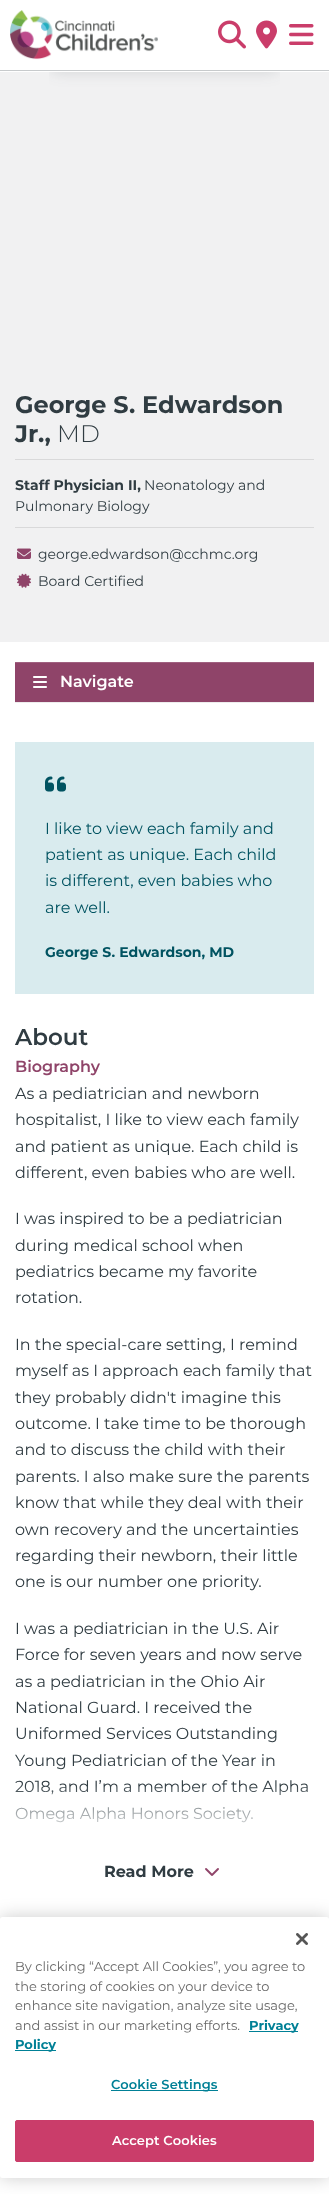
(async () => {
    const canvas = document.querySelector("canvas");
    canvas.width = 329;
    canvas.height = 2194;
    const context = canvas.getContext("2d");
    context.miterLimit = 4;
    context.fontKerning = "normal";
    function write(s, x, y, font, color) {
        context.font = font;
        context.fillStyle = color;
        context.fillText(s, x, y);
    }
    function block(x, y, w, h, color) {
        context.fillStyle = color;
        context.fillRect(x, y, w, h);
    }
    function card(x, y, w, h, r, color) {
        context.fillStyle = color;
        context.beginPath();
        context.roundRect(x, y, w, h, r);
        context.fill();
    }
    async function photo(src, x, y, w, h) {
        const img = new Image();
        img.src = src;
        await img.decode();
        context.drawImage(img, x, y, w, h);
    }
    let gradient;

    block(0, 0, 329, 2194, "rgb(255, 255, 255)");
    block(0, 72, 329, 570, "rgb(241, 241, 242)");
    context.save();
    context.beginPath();
    context.rect(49, 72, 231, 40);
    context.clip();
    context.fillStyle = "rgba(48, 60, 66, 0.15)";
    context.filter = "blur(7.5px)";
    context.beginPath();
    context.roundRect(49, 52, 231, 20, 10);
    context.fill();
    context.filter = "none";
    context.restore();
    block(0, 70, 329, 1, "rgb(199, 202, 204)");
    await photo("media/1.png", 10, 10, 148, 50);
    await photo("media/2.png", 218, 20, 28, 29);
    await photo("media/3.png", 256, 20, 21, 29);
    await photo("media/4.png", 289, 24, 25, 21);
    write("George S. Edwardson", 15, 413, "bold 24px Montserrat", "rgb(48, 60, 66)");
    write("Jr.,", 15, 442, "bold 24px Montserrat", "rgb(48, 60, 66)");
    write("MD", 57, 442, "300 24px Montserrat", "rgb(48, 60, 66)");
    block(15, 459, 299, 1, "rgb(217, 217, 218)");
    block(15, 527, 299, 1, "rgb(217, 217, 218)");
    write("Staff Physician II,", 15, 490, "bold 14px Montserrat", "rgb(48, 60, 66)");
    write("Neonatology and", 144, 490, "14px Montserrat", "rgb(48, 60, 66)");
    write("Pulmonary Biology", 15, 511, "14px Montserrat", "rgb(48, 60, 66)");
    await photo("media/5.png", 17, 548, 14, 11);
    write("george.edwardson@cchmc.org", 38, 559, "14px Montserrat", "rgb(48, 60, 66)");
    await photo("media/6.png", 17, 573, 14, 15);
    write("Board Certified", 38, 586, "14px Montserrat", "rgb(48, 60, 66)");
    context.fillStyle = "rgba(0, 0, 0, 0.07)";
    context.filter = "blur(0.5px)";
    context.beginPath();
    context.rect(15, 663, 299, 40);
    context.fill();
    context.filter = "none";
    block(15, 663, 299, 39, "rgb(143, 68, 105)");
    block(15, 662, 299, 1, "rgb(160, 96, 128)");
    await photo("media/7.png", 33, 676, 14, 12);
    write("Navigate", 60, 687, "600 16px Montserrat", "rgb(255, 255, 255)");
    block(15, 742, 299, 252, "rgb(217, 235, 238)");
    await photo("media/8.png", 45, 776, 21, 16);
    write("I like to view each family and", 45, 834, "16px Montserrat", "rgb(1, 83, 97)");
    write("patient as unique. Each child", 45, 860, "16px Montserrat", "rgb(1, 83, 97)");
    write("is different, even babies who", 45, 886, "16px Montserrat", "rgb(1, 83, 97)");
    write("are well.", 45, 913, "16px Montserrat", "rgb(1, 83, 97)");
    write("George S. Edwardson, MD", 45, 957, "bold 14px Montserrat", "rgb(1, 83, 97)");
    write("About", 15, 1045, "600 23px Montserrat", "rgb(48, 60, 66)");
    write("Biography", 15, 1072, "600 16px Montserrat", "rgb(143, 68, 105)");
    write("As a pediatrician and newborn", 15, 1099, "16px Montserrat", "rgb(48, 60, 66)");
    write("hospitalist, I like to view each family", 15, 1125, "16px Montserrat", "rgb(48, 60, 66)");
    write("and patient as unique. Each child is", 15, 1152, "16px Montserrat", "rgb(48, 60, 66)");
    write("different, even babies who are well.", 15, 1178, "16px Montserrat", "rgb(48, 60, 66)");
    write("I was inspired to be a pediatrician", 15, 1224, "16px Montserrat", "rgb(48, 60, 66)");
    write("during medical school when", 15, 1251, "16px Montserrat", "rgb(48, 60, 66)");
    write("pediatrics became my favorite", 15, 1277, "16px Montserrat", "rgb(48, 60, 66)");
    write("rotation.", 15, 1303, "16px Montserrat", "rgb(48, 60, 66)");
    write("In the special-care setting, I remind", 15, 1350, "16px Montserrat", "rgb(48, 60, 66)");
    write("myself as I approach each family that", 15, 1376, "16px Montserrat", "rgb(48, 60, 66)");
    write("they probably didn't imagine this", 15, 1403, "16px Montserrat", "rgb(48, 60, 66)");
    write("outcome. I take time to be thorough", 15, 1429, "16px Montserrat", "rgb(48, 60, 66)");
    write("and to discuss the child with their", 15, 1455, "16px Montserrat", "rgb(48, 60, 66)");
    write("parents. I also make sure the parents", 15, 1482, "16px Montserrat", "rgb(48, 60, 66)");
    write("know that while they deal with their", 15, 1508, "16px Montserrat", "rgb(48, 60, 66)");
    write("own recovery and the uncertainties", 15, 1535, "16px Montserrat", "rgb(48, 60, 66)");
    write("regarding their newborn, their little", 15, 1561, "16px Montserrat", "rgb(48, 60, 66)");
    write("one is our number one priority.", 15, 1587, "16px Montserrat", "rgb(48, 60, 66)");
    write("I was a pediatrician in the U.S. Air", 15, 1634, "16px Montserrat", "rgb(48, 60, 66)");
    write("Force for seven years and now serve", 15, 1660, "16px Montserrat", "rgb(48, 60, 66)");
    write("as a pediatrician in the Ohio Air", 15, 1687, "16px Montserrat", "rgb(48, 60, 66)");
    write("National Guard. I received the", 15, 1713, "16px Montserrat", "rgb(48, 60, 66)");
    write("Uniformed Services Outstanding", 15, 1739, "16px Montserrat", "rgb(48, 60, 66)");
    write("Young Pediatrician of the Year in", 15, 1766, "16px Montserrat", "rgb(48, 60, 66)");
    write("2018, and I’m a member of the Alpha", 15, 1792, "16px Montserrat", "rgb(48, 60, 66)");
    write("Omega Alpha Honors Society.", 15, 1819, "16px Montserrat", "rgb(48, 60, 66)");
    gradient = context.createLinearGradient(165, 1785, 165, 1849);
    gradient.addColorStop(0, "rgba(255, 255, 255, 0)");
    gradient.addColorStop(0.2, "rgba(255, 255, 255, 0.3)");
    gradient.addColorStop(0.85, "rgb(255, 255, 255)");
    context.fillStyle = gradient;
    context.fillRect(15, 1786, 293, 37);
    write("Read More", 104, 1877, "bold 16px Montserrat", "rgb(48, 60, 66)");
    await photo("media/9.png", 205, 1868, 14, 8);
    context.fillStyle = "rgba(0, 0, 0, 0.2)";
    context.filter = "blur(9px)";
    context.beginPath();
    context.roundRect(0, 1917, 329, 261, 2.5);
    context.fill();
    context.filter = "none";
    card(0, 1917, 329, 261, 2.5, "rgb(255, 255, 255)");
    await photo("media/10.png", 296, 1933, 12, 12);
    write("By clicking “Accept All Cookies”, you agree to", 15, 1971, "13px Montserrat", "rgb(105, 105, 105)");
    write("the storing of cookies on your device to", 15, 1991, "13px Montserrat", "rgb(105, 105, 105)");
    write("enhance site navigation, analyze site usage,", 15, 2010, "13px Montserrat", "rgb(105, 105, 105)");
    write("and assist in our marketing efforts.", 15, 2030, "13px Montserrat", "rgb(105, 105, 105)");
    block(249, 2031, 49, 1, "rgb(0, 128, 150)");
    write("Privacy", 249, 2030, "bold 13px Montserrat", "rgb(0, 128, 150)");
    block(15, 2050, 41, 1, "rgb(0, 128, 150)");
    write("Policy", 15, 2049, "bold 13px Montserrat", "rgb(0, 128, 150)");
    block(111, 2090, 107, 1, "rgb(0, 128, 150)");
    context.letterSpacing = "0.1px";
    write("Cookie Settings", 111, 2089, "600 13px Montserrat", "rgb(0, 128, 150)");
    context.fillStyle = "rgb(202, 61, 106)";
    context.beginPath();
    context.roundRect(15.5, 2120.5, 298, 41, 1.5);
    context.fill();
    context.strokeStyle = "rgb(202, 61, 106)";
    context.stroke();
    write("Accept Cookies", 112, 2145, "600 13px Montserrat", "rgb(255, 255, 255)");
})();
